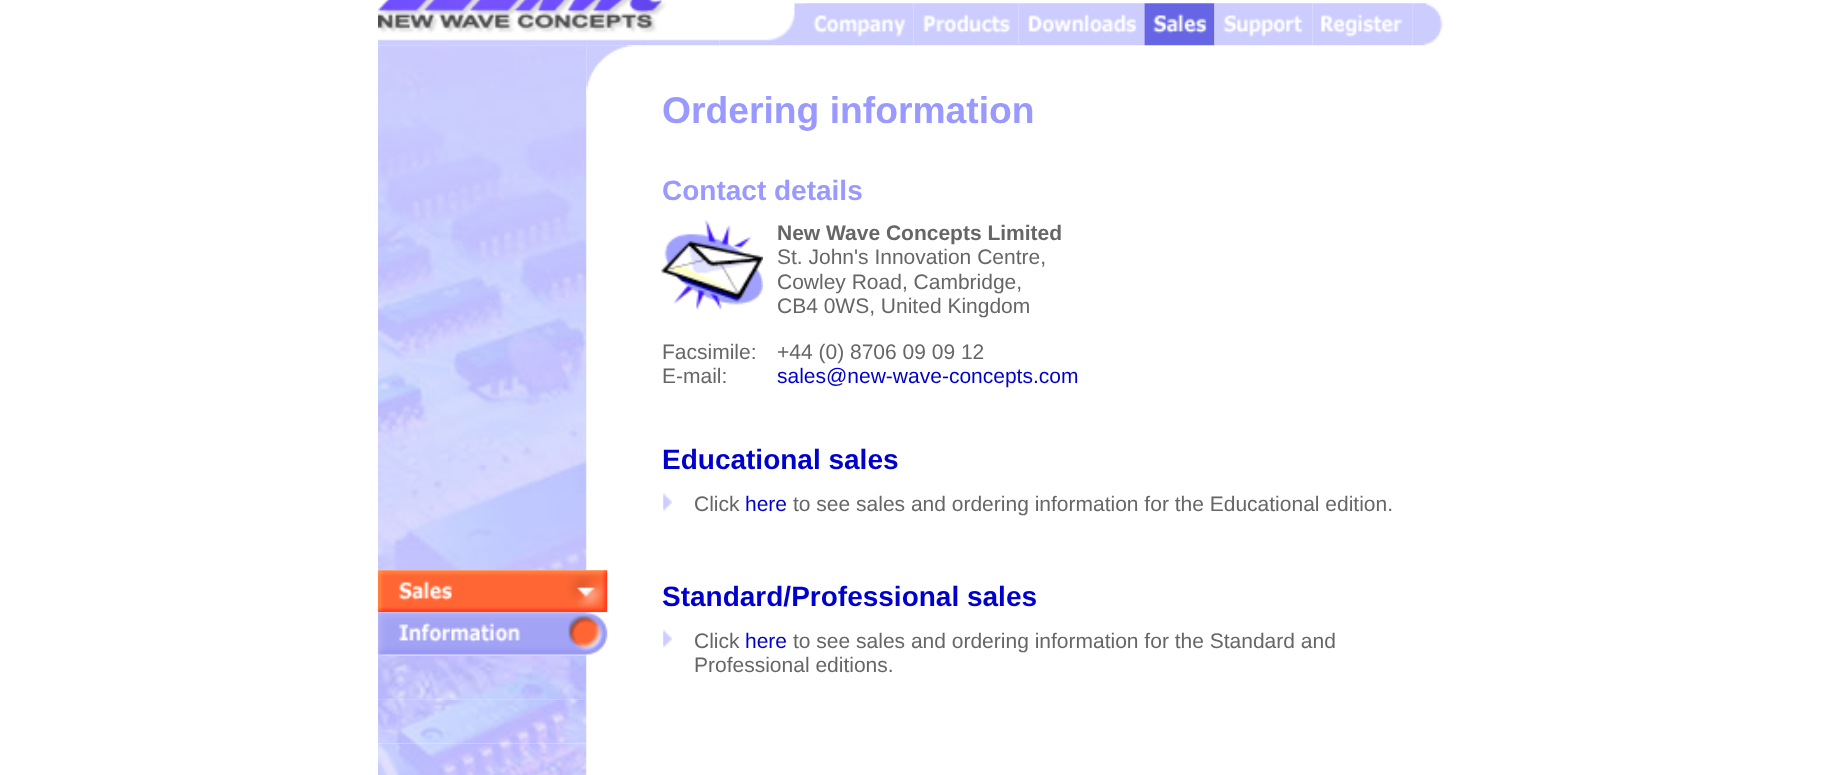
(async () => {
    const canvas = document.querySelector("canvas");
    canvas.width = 1841;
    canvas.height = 775;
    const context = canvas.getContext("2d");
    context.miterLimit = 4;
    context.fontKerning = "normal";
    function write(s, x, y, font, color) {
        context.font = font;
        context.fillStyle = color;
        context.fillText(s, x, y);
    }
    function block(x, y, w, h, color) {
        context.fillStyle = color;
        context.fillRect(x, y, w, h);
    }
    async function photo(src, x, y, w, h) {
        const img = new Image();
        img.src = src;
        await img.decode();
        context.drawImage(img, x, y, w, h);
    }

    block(0, 0, 1841, 775, "rgb(255, 255, 255)");
    await photo("media/1.png", 378, 0, 342, 46);
    await photo("media/2.png", 719, 3, 86, 43);
    await photo("media/3.png", 805, 3, 109, 43);
    await photo("media/4.png", 913, 3, 106, 43);
    await photo("media/5.png", 1018, 3, 127, 43);
    await photo("media/6.png", 1144, 3, 71, 43);
    await photo("media/7.png", 1214, 3, 99, 43);
    await photo("media/8.png", 1312, 3, 101, 43);
    await photo("media/9.png", 1412, 3, 31, 43);
    await photo("media/10.png", 378, 45, 209, 526);
    await photo("media/11.png", 586, 45, 43, 49);
    await photo("media/12.png", 378, 570, 230, 43);
    await photo("media/13.png", 378, 612, 230, 44);
    await photo("media/14.png", 378, 656, 209, 44);
    await photo("media/15.png", 378, 699, 209, 45);
    await photo("media/16.png", 378, 743, 209, 32);
    await photo("media/17.png", 628, 45, 14, 2);
    write("Ordering information", 662, 123, "bold 37.25px Liberation Sans", "rgb(153, 153, 255)");
    write("Contact details", 662, 200, "bold 28px Liberation Sans", "rgb(153, 153, 255)");
    await photo("media/18.png", 661, 220, 102, 90);
    write("New Wave Concepts Limited", 777, 240, "bold 21px Liberation Sans", "rgb(102, 102, 102)");
    write("St. John's Innovation Centre,", 777, 264, "21px Liberation Sans", "rgb(102, 102, 102)");
    write("Cowley Road, Cambridge,", 777, 289, "21px Liberation Sans", "rgb(102, 102, 102)");
    write("CB4 0WS, United Kingdom", 777, 313, "21px Liberation Sans", "rgb(102, 102, 102)");
    write("Facsimile:", 662, 359, "21px Liberation Sans", "rgb(102, 102, 102)");
    write("+44 (0) 8706 09 09 12", 777, 359, "21px Liberation Sans", "rgb(102, 102, 102)");
    write("E-mail:", 662, 383, "21px Liberation Sans", "rgb(102, 102, 102)");
    write("sales@new-wave-concepts.com", 777, 383, "21px Liberation Sans", "rgb(0, 0, 204)");
    write("Educational sales", 662, 469, "bold 28px Liberation Sans", "rgb(0, 0, 204)");
    await photo("media/19.png", 663, 493, 9, 18);
    write("Click", 694, 511, "21px Liberation Sans", "rgb(102, 102, 102)");
    write("here", 745, 511, "21px Liberation Sans", "rgb(0, 0, 204)");
    write("to see sales and ordering information for the Educational edition.", 793, 511, "21px Liberation Sans", "rgb(102, 102, 102)");
    write("Standard/Professional sales", 662, 606, "bold 28px Liberation Sans", "rgb(0, 0, 204)");
    await photo("media/20.png", 663, 629, 9, 19);
    write("Click", 694, 648, "21px Liberation Sans", "rgb(102, 102, 102)");
    write("here", 745, 648, "21px Liberation Sans", "rgb(0, 0, 204)");
    write("to see sales and ordering information for the Standard and", 793, 648, "21px Liberation Sans", "rgb(102, 102, 102)");
    write("Professional editions.", 694, 672, "21px Liberation Sans", "rgb(102, 102, 102)");
})();
